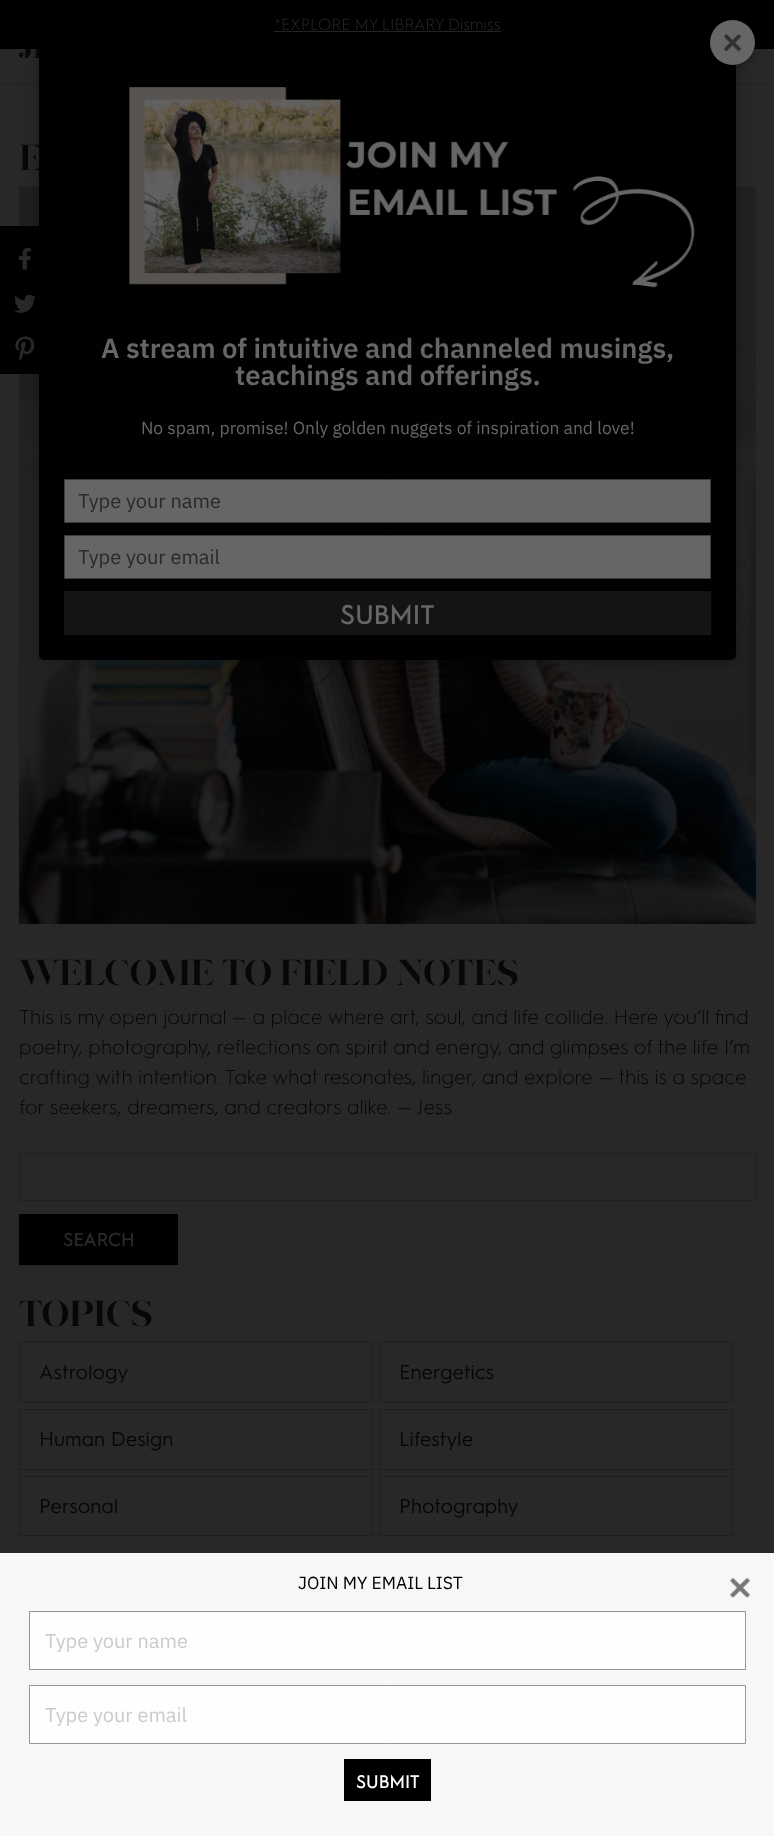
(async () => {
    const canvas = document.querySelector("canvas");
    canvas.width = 774;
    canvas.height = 1836;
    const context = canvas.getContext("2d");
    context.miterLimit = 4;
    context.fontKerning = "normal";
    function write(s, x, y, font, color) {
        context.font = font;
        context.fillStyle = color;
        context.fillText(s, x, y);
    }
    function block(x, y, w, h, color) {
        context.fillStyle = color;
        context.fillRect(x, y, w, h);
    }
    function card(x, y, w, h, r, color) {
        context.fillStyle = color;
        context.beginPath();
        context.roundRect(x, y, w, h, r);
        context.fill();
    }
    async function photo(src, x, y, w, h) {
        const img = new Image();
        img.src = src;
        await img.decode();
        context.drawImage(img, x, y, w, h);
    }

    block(0, 0, 774, 1836, "rgb(40, 40, 40)");
    block(0, 0, 774, 49, "rgb(0, 0, 0)");
    write("*EXPLORE MY LIBRARY Dismiss", 274, 30, "300 16px 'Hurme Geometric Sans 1'", "rgb(41, 41, 41)");
    block(274, 31, 227, 1, "rgb(40, 40, 41)");
    block(0, 83, 774, 1, "rgb(35, 34, 32)");
    await photo("media/1.png", 19, 49, 20, 9);
    write("E", 19, 170, "bold 36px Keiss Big", "rgb(7, 7, 6)");
    await photo("media/2.png", 18, 186, 739, 738);
    write("WELCOME TO FIELD NOTES", 19, 985, "bold 36px Keiss Big", "rgb(7, 7, 6)");
    write("This is my open journal — a place where art, soul, and life collide. Here you’ll find", 19, 1024, "300 20px 'Hurme Geometric Sans 1'", "rgb(7, 7, 6)");
    write("poetry, photography, reflections on spirit and energy, and glimpses of the life I’m", 19, 1054, "300 20px 'Hurme Geometric Sans 1'", "rgb(7, 7, 6)");
    write("crafting with intention. Take what resonates, linger, and explore — this is a space", 19, 1084, "300 20px 'Hurme Geometric Sans 1'", "rgb(7, 7, 6)");
    write("for seekers, dreamers, and creators alike. — Jess", 19, 1114, "300 20px 'Hurme Geometric Sans 1'", "rgb(7, 7, 6)");
    context.strokeStyle = "rgb(32, 32, 32)";
    context.strokeRect(19.5, 1153.5, 736, 47);
    block(19, 1214, 159, 51, "rgb(0, 0, 0)");
    write("SEARCH", 63, 1246, "bold 18px 'Hurme Geometric Sans 1'", "rgb(41, 41, 41)");
    write("TOPICS", 19, 1326, "bold 36px Keiss Big", "rgb(7, 7, 6)");
    context.strokeStyle = "rgb(31, 31, 31)";
    context.strokeRect(19.5, 1341.5, 353, 61);
    write("Astrology", 39, 1379, "20px 'Hurme Geometric Sans 1'", "rgb(7, 7, 6)");
    context.strokeRect(379.5, 1341.5, 353, 61);
    write("Energetics", 399, 1379, "20px 'Hurme Geometric Sans 1'", "rgb(7, 7, 6)");
    context.strokeRect(19.5, 1409.5, 353, 60);
    write("Human Design", 39, 1446, "20px 'Hurme Geometric Sans 1'", "rgb(7, 7, 6)");
    context.strokeRect(379.5, 1409.5, 353, 60);
    write("Lifestyle", 399, 1446, "20px 'Hurme Geometric Sans 1'", "rgb(7, 7, 6)");
    context.strokeRect(19.5, 1476.5, 353, 59);
    write("Personal", 39, 1513, "20px 'Hurme Geometric Sans 1'", "rgb(7, 7, 6)");
    context.strokeRect(379.5, 1476.5, 353, 59);
    write("Photography", 399, 1513, "20px 'Hurme Geometric Sans 1'", "rgb(7, 7, 6)");
    block(0, 226, 39, 148, "rgb(0, 0, 0)");
    await photo("media/3.png", 19, 248, 12, 22);
    await photo("media/4.png", 14, 294, 22, 19);
    await photo("media/5.png", 15, 336, 20, 25);
    context.fillStyle = "rgba(0, 0, 0, 0.3)";
    context.filter = "blur(8px)";
    context.beginPath();
    context.roundRect(39, 39, 697, 622, 5);
    context.fill();
    context.filter = "none";
    card(39, 38, 697, 622, 5, "rgb(1, 1, 1)");
    context.fillStyle = "rgba(0, 0, 0, 0.3)";
    context.filter = "blur(3px)";
    context.beginPath();
    context.roundRect(710, 21, 45, 45, 22.5);
    context.fill();
    context.filter = "none";
    context.fillStyle = "rgb(102, 102, 102)";
    context.beginPath();
    context.arc(732.5, 42.5, 22.5, 0, Math.PI * 2);
    context.fill();
    await photo("media/6.png", 723, 34, 19, 18);
    await photo("media/7.png", 129, 87, 566, 201);
    write("A stream of intuitive and channeled musings,", 101, 358, "600 27.5px IBM Plex Sans", "rgb(102, 102, 102)");
    write("teachings and offerings.", 235, 385, "600 27.5px IBM Plex Sans", "rgb(102, 102, 102)");
    write("No spam, promise! Only golden nuggets of inspiration and love!", 141, 434, "17.5px IBM Plex Sans", "rgb(102, 102, 102)");
    context.beginPath();
    context.rect(64.5, 479.5, 646, 43);
    context.fill();
    context.strokeStyle = "rgb(60, 60, 60)";
    context.stroke();
    write("Type your name", 78, 508, "20px IBM Plex Sans", "rgb(41, 41, 41)");
    context.fillStyle = "rgb(102, 102, 102)";
    context.beginPath();
    context.rect(64.5, 535.5, 646, 43);
    context.fill();
    context.stroke();
    write("Type your email", 78, 564, "20px IBM Plex Sans", "rgb(41, 41, 41)");
    card(64, 591, 647, 44, 1, "rgb(20, 20, 20)");
    write("SUBMIT", 340, 624, "bold 26px 'Hurme Geometric Sans 1'", "rgb(102, 102, 102)");
    block(0, 1553, 774, 283, "rgb(247, 247, 247)");
    write("JOIN MY EMAIL LIST", 298, 1589, "17.5px IBM Plex Sans", "rgb(0, 0, 0)");
    block(30, 1613, 715, 56, "rgb(254, 254, 254)");
    context.strokeStyle = "rgb(151, 151, 151)";
    context.strokeRect(29.5, 1611.5, 716, 58);
    write("Type your name", 45, 1648, "20px IBM Plex Sans", "rgb(202, 202, 202)");
    context.fillStyle = "rgb(254, 254, 254)";
    context.beginPath();
    context.rect(29.5, 1685.5, 716, 58);
    context.fill();
    context.stroke();
    write("Type your email", 45, 1722, "20px IBM Plex Sans", "rgb(202, 202, 202)");
    block(344, 1759, 87, 42, "rgb(0, 0, 0)");
    write("SUBMIT", 356, 1788, "bold 17.5px 'Hurme Geometric Sans 1'", "rgb(255, 255, 255)");
    await photo("media/8.png", 729, 1578, 21, 20);
})();
